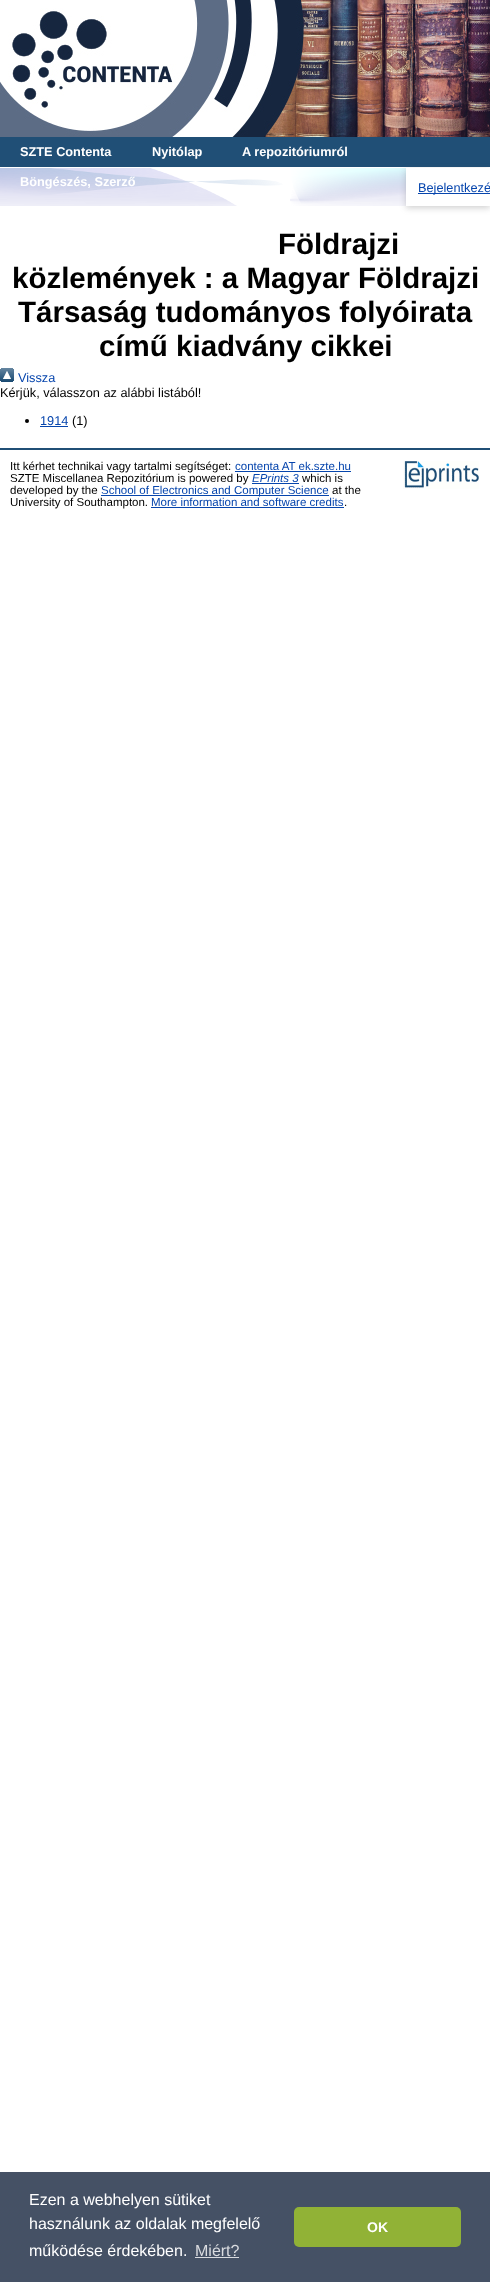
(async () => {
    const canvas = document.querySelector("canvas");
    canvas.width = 490;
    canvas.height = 2282;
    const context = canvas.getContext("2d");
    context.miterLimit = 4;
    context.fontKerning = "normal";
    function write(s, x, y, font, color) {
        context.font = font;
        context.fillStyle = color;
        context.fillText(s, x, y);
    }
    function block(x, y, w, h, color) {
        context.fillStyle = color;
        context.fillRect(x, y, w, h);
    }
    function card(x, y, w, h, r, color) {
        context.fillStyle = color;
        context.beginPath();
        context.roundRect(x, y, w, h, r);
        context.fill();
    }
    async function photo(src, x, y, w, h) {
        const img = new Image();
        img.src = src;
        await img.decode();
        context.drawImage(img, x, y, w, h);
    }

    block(0, 0, 490, 2282, "rgb(255, 255, 255)");
    await photo("media/1.png", 0, 168, 406, 38);
    await photo("media/2.png", 0, 0, 490, 137);
    block(0, 137, 490, 30, "rgb(32, 79, 118)");
    write("SZTE Contenta", 20, 156, "bold 12.75px Liberation Sans", "rgb(255, 255, 255)");
    write("Nyitólap", 152, 156, "bold 12.75px Liberation Sans", "rgb(255, 255, 255)");
    write("A repozitóriumról", 242, 156, "bold 12.75px Liberation Sans", "rgb(255, 255, 255)");
    write("Böngészés, Szerző", 20, 186, "bold 12.75px Liberation Sans", "rgb(255, 255, 255)");
    context.fillStyle = "rgba(100, 100, 100, 0.3)";
    context.filter = "blur(3px)";
    context.beginPath();
    context.rect(406, 170, 84, 38);
    context.fill();
    context.filter = "none";
    block(406, 168, 84, 38, "rgb(255, 255, 255)");
    block(418, 193, 72, 1, "rgb(6, 69, 173)");
    write("Bejelentkezé", 418, 192, "12.75px Liberation Sans", "rgb(6, 69, 173)");
    write("Földrajzi", 278, 254, "bold 29.5px Liberation Sans", "rgb(0, 0, 0)");
    write("közlemények : a Magyar Földrajzi", 12, 288, "bold 29.5px Liberation Sans", "rgb(0, 0, 0)");
    write("Társaság tudományos folyóirata", 18, 322, "bold 29.5px Liberation Sans", "rgb(0, 0, 0)");
    write("című kiadvány cikkei", 99, 356, "bold 29.5px Liberation Sans", "rgb(0, 0, 0)");
    await photo("media/3.png", 0, 368, 14, 14);
    write("Vissza", 18, 382, "12.75px Liberation Sans", "rgb(6, 69, 173)");
    write("Kérjük, válasszon az alábbi listából!", 0, 397, "12.75px Liberation Sans", "rgb(0, 0, 0)");
    context.beginPath();
    context.arc(27, 421, 2, 0, Math.PI * 2);
    context.fill();
    write("1914", 40, 425, "12.75px Liberation Sans", "rgb(6, 69, 173)");
    block(40, 426, 28, 1, "rgb(6, 69, 173)");
    write("(1)", 72, 425, "12.75px Liberation Sans", "rgb(0, 0, 0)");
    block(0, 448, 490, 2, "rgb(32, 79, 118)");
    write("Itt kérhet technikai vagy tartalmi segítséget:", 10, 470, "11.5px Liberation Sans", "rgb(0, 0, 0)");
    write("contenta AT ek.szte.hu", 235, 470, "11.5px Liberation Sans", "rgb(6, 69, 173)");
    block(235, 471, 116, 1, "rgb(6, 69, 173)");
    write("SZTE Miscellanea Repozitórium is powered by", 10, 482, "11.5px Liberation Sans", "rgb(0, 0, 0)");
    write("EPrints 3", 252, 482, "italic 11.5px Liberation Sans", "rgb(6, 69, 173)");
    block(252, 483, 47, 1, "rgb(6, 69, 173)");
    write("which is", 302, 482, "11.5px Liberation Sans", "rgb(0, 0, 0)");
    write("developed by the", 10, 494, "11.5px Liberation Sans", "rgb(0, 0, 0)");
    block(101, 495, 228, 1, "rgb(6, 69, 173)");
    write("School of Electronics and Computer Science", 101, 494, "11.5px Liberation Sans", "rgb(6, 69, 173)");
    write("at the", 332, 494, "11.5px Liberation Sans", "rgb(0, 0, 0)");
    write("University of Southampton.", 10, 506, "11.5px Liberation Sans", "rgb(0, 0, 0)");
    write("More information and software credits", 151, 506, "11.5px Liberation Sans", "rgb(6, 69, 173)");
    block(151, 507, 193, 1, "rgb(6, 69, 173)");
    write(".", 344, 506, "11.5px Liberation Sans", "rgb(0, 0, 0)");
    await photo("media/4.png", 403, 461, 76, 28);
    block(0, 2172, 490, 110, "rgb(69, 81, 101)");
    write("Ezen a webhelyen sütiket", 29, 2205, "16px Liberation Sans", "rgb(255, 255, 255)");
    write("használunk az oldalak megfelelő", 29, 2229, "16px Liberation Sans", "rgb(255, 255, 255)");
    write("működése érdekében.", 29, 2256, "16px Liberation Sans", "rgb(255, 255, 255)");
    write("Miért?", 195, 2256, "16px Liberation Sans", "rgb(218, 220, 224)");
    block(195, 2257, 44, 1, "rgb(218, 220, 224)");
    card(294, 2207, 167, 40, 5, "rgb(145, 178, 54)");
    write("OK", 367, 2232, "bold 14px Liberation Sans", "rgb(255, 255, 255)");
})();
